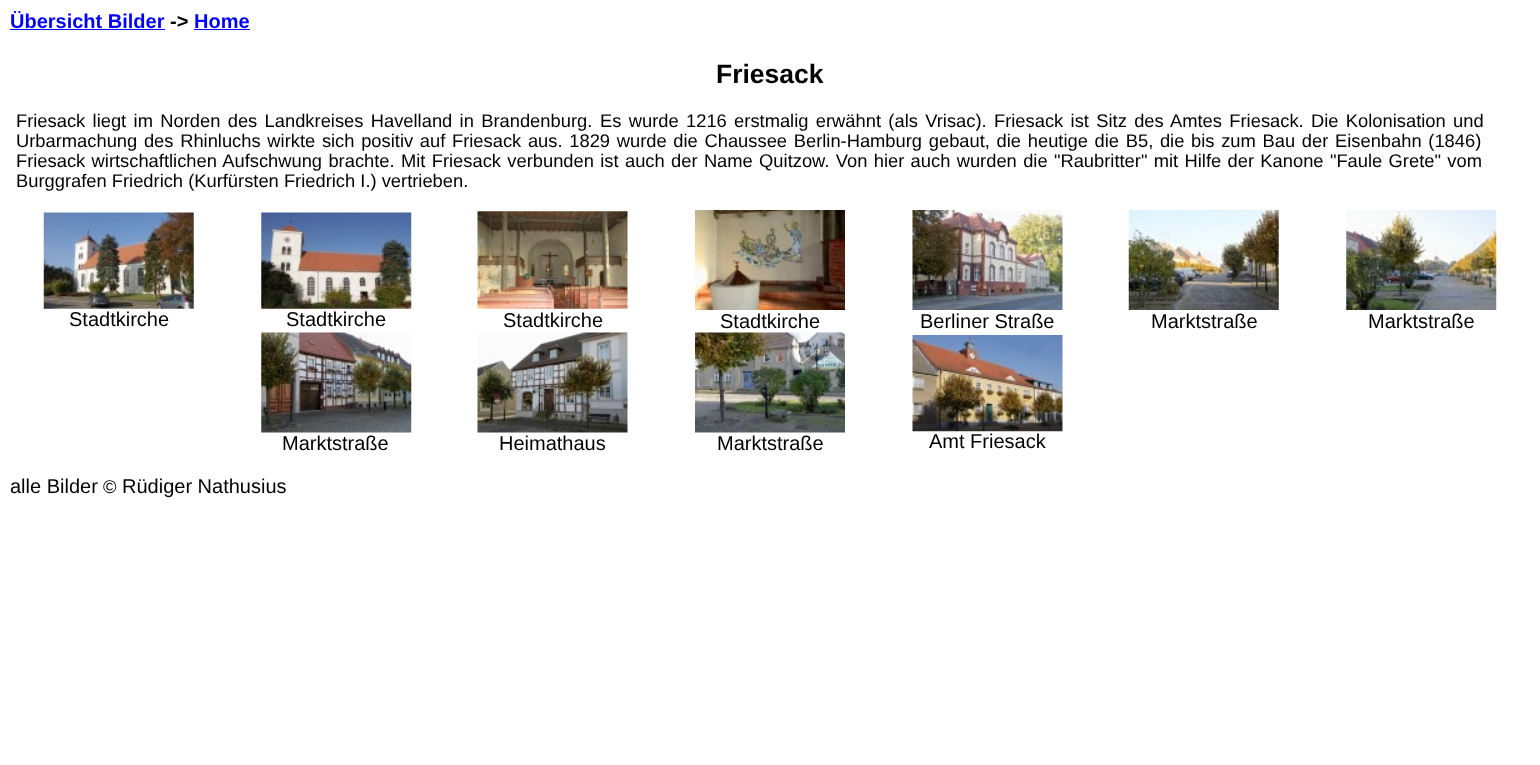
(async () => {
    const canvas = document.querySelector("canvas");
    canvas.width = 1540;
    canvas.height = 765;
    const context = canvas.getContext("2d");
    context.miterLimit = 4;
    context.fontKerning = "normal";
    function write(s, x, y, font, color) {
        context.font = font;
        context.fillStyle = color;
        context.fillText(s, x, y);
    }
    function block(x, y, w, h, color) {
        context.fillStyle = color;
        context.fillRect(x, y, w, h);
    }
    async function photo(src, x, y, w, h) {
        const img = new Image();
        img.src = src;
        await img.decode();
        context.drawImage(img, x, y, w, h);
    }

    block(0, 0, 1540, 765, "rgb(255, 255, 255)");
    write("Übersicht Bilder", 10, 28, "bold 20px Liberation Sans", "rgb(0, 0, 255)");
    block(10, 29, 155, 1, "rgb(0, 0, 255)");
    write("->", 170, 28, "bold 20px Liberation Sans", "rgb(0, 0, 0)");
    write("Home", 194, 28, "bold 20px Liberation Sans", "rgb(0, 0, 255)");
    block(194, 29, 56, 1, "rgb(0, 0, 255)");
    write("Friesack", 716, 83, "bold 26.5px Liberation Sans", "rgb(0, 0, 0)");
    context.wordSpacing = "2.25px";
    write("Friesack liegt im Norden des Landkreises Havelland in Brandenburg.", 16, 127, "18.33px Liberation Sans", "rgb(0, 0, 0)");
    write("Es wurde 1216 erstmalig erwähnt (als Vrisac). Friesack ist Sitz des Amtes Friesack. Die Kolonisation und", 600, 127, "18.33px Liberation Sans", "rgb(0, 0, 0)");
    context.wordSpacing = "1.6px";
    write("Urbarmachung des Rhinluchs wirkte sich positiv auf Friesack aus. 1829 wurde die Chaussee Berlin-Hamburg gebaut, die heutige die B5, die bis zum Bau der Eisenbahn (1846)", 16, 147, "18.33px Liberation Sans", "rgb(0, 0, 0)");
    context.wordSpacing = "1.25px";
    write("Friesack wirtschaftlichen Aufschwung brachte. Mit Friesack verbunden ist auch der Name Quitzow. Von hier auch wurden die \"Raubritter\" mit Hilfe der Kanone \"Faule Grete\" vom", 16, 167, "18.33px Liberation Sans", "rgb(0, 0, 0)");
    context.wordSpacing = "0px";
    write("Burggrafen Friedrich (Kurfürsten Friedrich I.) vertrieben.", 16, 187, "18.33px Liberation Sans", "rgb(0, 0, 0)");
    await photo("media/1.png", 43, 212, 151, 97);
    write("Stadtkirche", 69, 326, "20px Liberation Sans", "rgb(0, 0, 0)");
    await photo("media/2.png", 261, 212, 151, 97);
    write("Stadtkirche", 286, 326, "20px Liberation Sans", "rgb(0, 0, 0)");
    await photo("media/3.png", 477, 211, 151, 98);
    write("Stadtkirche", 503, 327, "20px Liberation Sans", "rgb(0, 0, 0)");
    await photo("media/4.png", 695, 210, 150, 100);
    write("Stadtkirche", 720, 328, "20px Liberation Sans", "rgb(0, 0, 0)");
    await photo("media/5.png", 912, 210, 151, 100);
    write("Berliner Straße", 920, 328, "20px Liberation Sans", "rgb(0, 0, 0)");
    await photo("media/6.png", 1128, 210, 151, 100);
    write("Marktstraße", 1151, 328, "20px Liberation Sans", "rgb(0, 0, 0)");
    await photo("media/7.png", 1346, 210, 151, 100);
    write("Marktstraße", 1368, 328, "20px Liberation Sans", "rgb(0, 0, 0)");
    await photo("media/8.png", 261, 332, 151, 101);
    write("Marktstraße", 282, 450, "20px Liberation Sans", "rgb(0, 0, 0)");
    await photo("media/9.png", 477, 332, 151, 101);
    write("Heimathaus", 499, 450, "20px Liberation Sans", "rgb(0, 0, 0)");
    await photo("media/10.png", 695, 332, 150, 101);
    write("Marktstraße", 717, 450, "20px Liberation Sans", "rgb(0, 0, 0)");
    await photo("media/11.png", 912, 335, 151, 97);
    write("Amt Friesack", 929, 448, "20px Liberation Sans", "rgb(0, 0, 0)");
    write("alle Bilder", 10, 493, "20px Liberation Sans", "rgb(0, 0, 0)");
    write("©", 103, 493, "18.33px Liberation Sans", "rgb(0, 0, 0)");
    write("Rüdiger Nathusius", 122, 493, "20px Liberation Sans", "rgb(0, 0, 0)");
})();
